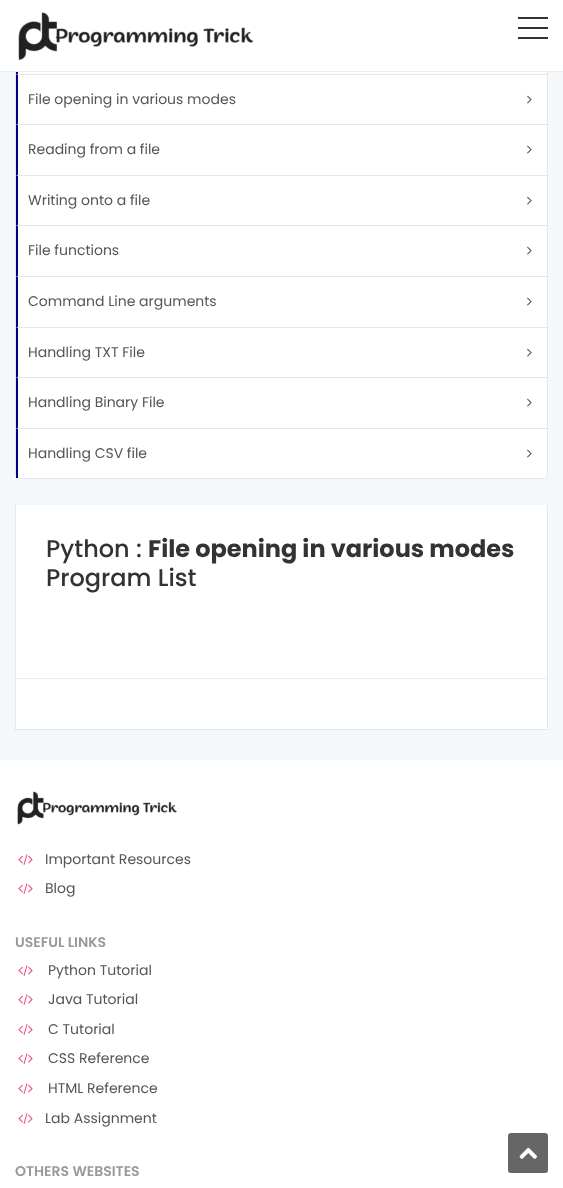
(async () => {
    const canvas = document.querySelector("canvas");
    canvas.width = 563;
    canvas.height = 1188;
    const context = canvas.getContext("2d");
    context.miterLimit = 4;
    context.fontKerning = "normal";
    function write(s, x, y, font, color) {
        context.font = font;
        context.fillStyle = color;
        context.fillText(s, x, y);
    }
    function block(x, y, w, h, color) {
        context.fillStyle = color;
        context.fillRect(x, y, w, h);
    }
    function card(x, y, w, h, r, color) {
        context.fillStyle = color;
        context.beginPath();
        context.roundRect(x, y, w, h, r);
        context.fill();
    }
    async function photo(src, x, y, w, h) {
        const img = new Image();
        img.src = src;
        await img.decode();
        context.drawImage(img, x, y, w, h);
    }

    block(0, 0, 563, 1188, "rgb(255, 255, 255)");
    block(0, 72, 563, 688, "rgb(245, 248, 250)");
    context.fillStyle = "rgb(255, 255, 255)";
    context.beginPath();
    context.roundRect(15.5, 23.5, 532, 455, 4.5);
    context.fill();
    context.strokeStyle = "rgb(225, 232, 237)";
    context.stroke();
    context.fillStyle = "rgb(225, 232, 237)";
    context.beginPath();
    context.moveTo(547, 75);
    context.lineTo(16, 75);
    context.lineTo(18, 74);
    context.lineTo(547, 74);
    context.closePath();
    context.fill();
    context.fillStyle = "rgb(0, 0, 128)";
    context.beginPath();
    context.moveTo(16, 75);
    context.lineTo(16, 24);
    context.lineTo(18, 24);
    context.lineTo(18, 74);
    context.closePath();
    context.fill();
    block(15, 23, 533, 48, "rgb(255, 255, 255)");
    block(0, 71, 563, 1, "rgb(237, 237, 237)");
    await photo("media/1.png", 18, 12, 236, 49);
    block(518, 27, 30, 2, "rgb(51, 51, 51)");
    block(518, 17, 30, 2, "rgb(51, 51, 51)");
    block(518, 37, 30, 2, "rgb(51, 51, 51)");
    context.fillStyle = "rgb(225, 232, 237)";
    context.beginPath();
    context.moveTo(547, 125);
    context.lineTo(16, 125);
    context.lineTo(18, 124);
    context.lineTo(547, 124);
    context.closePath();
    context.fill();
    context.fillStyle = "rgb(0, 0, 128)";
    context.beginPath();
    context.moveTo(16, 125);
    context.lineTo(16, 75);
    context.lineTo(18, 75);
    context.lineTo(18, 124);
    context.closePath();
    context.fill();
    write("File opening in various modes", 28, 104, "14px Poppins", "rgb(85, 85, 85)");
    await photo("media/2.png", 527, 95, 5, 9);
    context.fillStyle = "rgb(225, 232, 237)";
    context.beginPath();
    context.moveTo(547, 176);
    context.lineTo(16, 176);
    context.lineTo(18, 175);
    context.lineTo(547, 175);
    context.closePath();
    context.fill();
    context.fillStyle = "rgb(0, 0, 128)";
    context.beginPath();
    context.moveTo(16, 176);
    context.lineTo(16, 125);
    context.lineTo(18, 125);
    context.lineTo(18, 175);
    context.closePath();
    context.fill();
    write("Reading from a file", 28, 154, "14px Poppins", "rgb(85, 85, 85)");
    await photo("media/2.png", 527, 145, 5, 9);
    context.fillStyle = "rgb(225, 232, 237)";
    context.beginPath();
    context.moveTo(547, 226);
    context.lineTo(16, 226);
    context.lineTo(18, 225);
    context.lineTo(547, 225);
    context.closePath();
    context.fill();
    context.fillStyle = "rgb(0, 0, 128)";
    context.beginPath();
    context.moveTo(16, 226);
    context.lineTo(16, 176);
    context.lineTo(18, 176);
    context.lineTo(18, 225);
    context.closePath();
    context.fill();
    write("Writing onto a file", 28, 205, "14px Poppins", "rgb(85, 85, 85)");
    await photo("media/2.png", 527, 196, 5, 9);
    context.fillStyle = "rgb(225, 232, 237)";
    context.beginPath();
    context.moveTo(547, 277);
    context.lineTo(16, 277);
    context.lineTo(18, 276);
    context.lineTo(547, 276);
    context.closePath();
    context.fill();
    context.fillStyle = "rgb(0, 0, 128)";
    context.beginPath();
    context.moveTo(16, 277);
    context.lineTo(16, 226);
    context.lineTo(18, 226);
    context.lineTo(18, 276);
    context.closePath();
    context.fill();
    write("File functions", 28, 255, "14px Poppins", "rgb(85, 85, 85)");
    await photo("media/2.png", 527, 246, 5, 9);
    context.fillStyle = "rgb(225, 232, 237)";
    context.beginPath();
    context.moveTo(547, 328);
    context.lineTo(16, 328);
    context.lineTo(18, 327);
    context.lineTo(547, 327);
    context.closePath();
    context.fill();
    context.fillStyle = "rgb(0, 0, 128)";
    context.beginPath();
    context.moveTo(16, 328);
    context.lineTo(16, 277);
    context.lineTo(18, 277);
    context.lineTo(18, 327);
    context.closePath();
    context.fill();
    write("Command Line arguments", 28, 306, "14px Poppins", "rgb(85, 85, 85)");
    await photo("media/2.png", 527, 297, 5, 9);
    context.fillStyle = "rgb(225, 232, 237)";
    context.beginPath();
    context.moveTo(547, 378);
    context.lineTo(16, 378);
    context.lineTo(18, 377);
    context.lineTo(547, 377);
    context.closePath();
    context.fill();
    context.fillStyle = "rgb(0, 0, 128)";
    context.beginPath();
    context.moveTo(16, 378);
    context.lineTo(16, 328);
    context.lineTo(18, 328);
    context.lineTo(18, 377);
    context.closePath();
    context.fill();
    write("Handling TXT File", 28, 357, "14px Poppins", "rgb(85, 85, 85)");
    await photo("media/2.png", 527, 348, 5, 9);
    context.fillStyle = "rgb(225, 232, 237)";
    context.beginPath();
    context.moveTo(547, 429);
    context.lineTo(16, 429);
    context.lineTo(18, 428);
    context.lineTo(547, 428);
    context.closePath();
    context.fill();
    context.fillStyle = "rgb(0, 0, 128)";
    context.beginPath();
    context.moveTo(16, 429);
    context.lineTo(16, 378);
    context.lineTo(18, 378);
    context.lineTo(18, 428);
    context.closePath();
    context.fill();
    write("Handling Binary File", 28, 407, "14px Poppins", "rgb(85, 85, 85)");
    await photo("media/2.png", 527, 398, 5, 9);
    block(16, 429, 2, 49, "rgb(0, 0, 128)");
    write("Handling CSV file", 28, 458, "14px Poppins", "rgb(85, 85, 85)");
    await photo("media/2.png", 527, 449, 5, 9);
    block(16, 505, 531, 224, "rgb(255, 255, 255)");
    block(547, 505, 1, 225, "rgb(225, 232, 237)");
    block(15, 729, 533, 1, "rgb(225, 232, 237)");
    block(15, 505, 1, 225, "rgb(225, 232, 237)");
    write("Python :", 46, 557, "500 24px Poppins", "rgb(51, 51, 51)");
    write("File opening in various modes", 148, 557, "bold 24px Poppins", "rgb(51, 51, 51)");
    write("Program List", 46, 586, "500 24px Poppins", "rgb(51, 51, 51)");
    block(16, 678, 531, 1, "rgb(237, 237, 237)");
    await photo("media/3.png", 17, 791, 160, 34);
    await photo("media/4.png", 18, 854, 15, 11);
    write("Important Resources", 45, 864, "14px Poppins", "rgb(85, 85, 85)");
    await photo("media/4.png", 18, 883, 15, 11);
    write("Blog", 45, 893, "14px Poppins", "rgb(85, 85, 85)");
    write("USEFUL LINKS", 15, 947, "600 14px Poppins", "rgb(153, 153, 153)");
    await photo("media/4.png", 18, 965, 15, 11);
    write("Python Tutorial", 48, 975, "14px Poppins", "rgb(85, 85, 85)");
    await photo("media/4.png", 18, 994, 15, 11);
    write("Java Tutorial", 48, 1004, "14px Poppins", "rgb(85, 85, 85)");
    await photo("media/4.png", 18, 1024, 15, 11);
    write("C Tutorial", 48, 1034, "14px Poppins", "rgb(85, 85, 85)");
    await photo("media/4.png", 18, 1053, 15, 11);
    write("CSS Reference", 48, 1063, "14px Poppins", "rgb(85, 85, 85)");
    await photo("media/4.png", 18, 1083, 15, 11);
    write("HTML Reference", 48, 1093, "14px Poppins", "rgb(85, 85, 85)");
    await photo("media/4.png", 18, 1113, 15, 11);
    write("Lab Assignment", 45, 1123, "14px Poppins", "rgb(85, 85, 85)");
    write("OTHERS WEBSITES", 15, 1176, "600 14px Poppins", "rgb(153, 153, 153)");
    card(508, 1133, 40, 40, 3, "rgb(102, 102, 102)");
    await photo("media/5.png", 519, 1147, 18, 12);
})();
